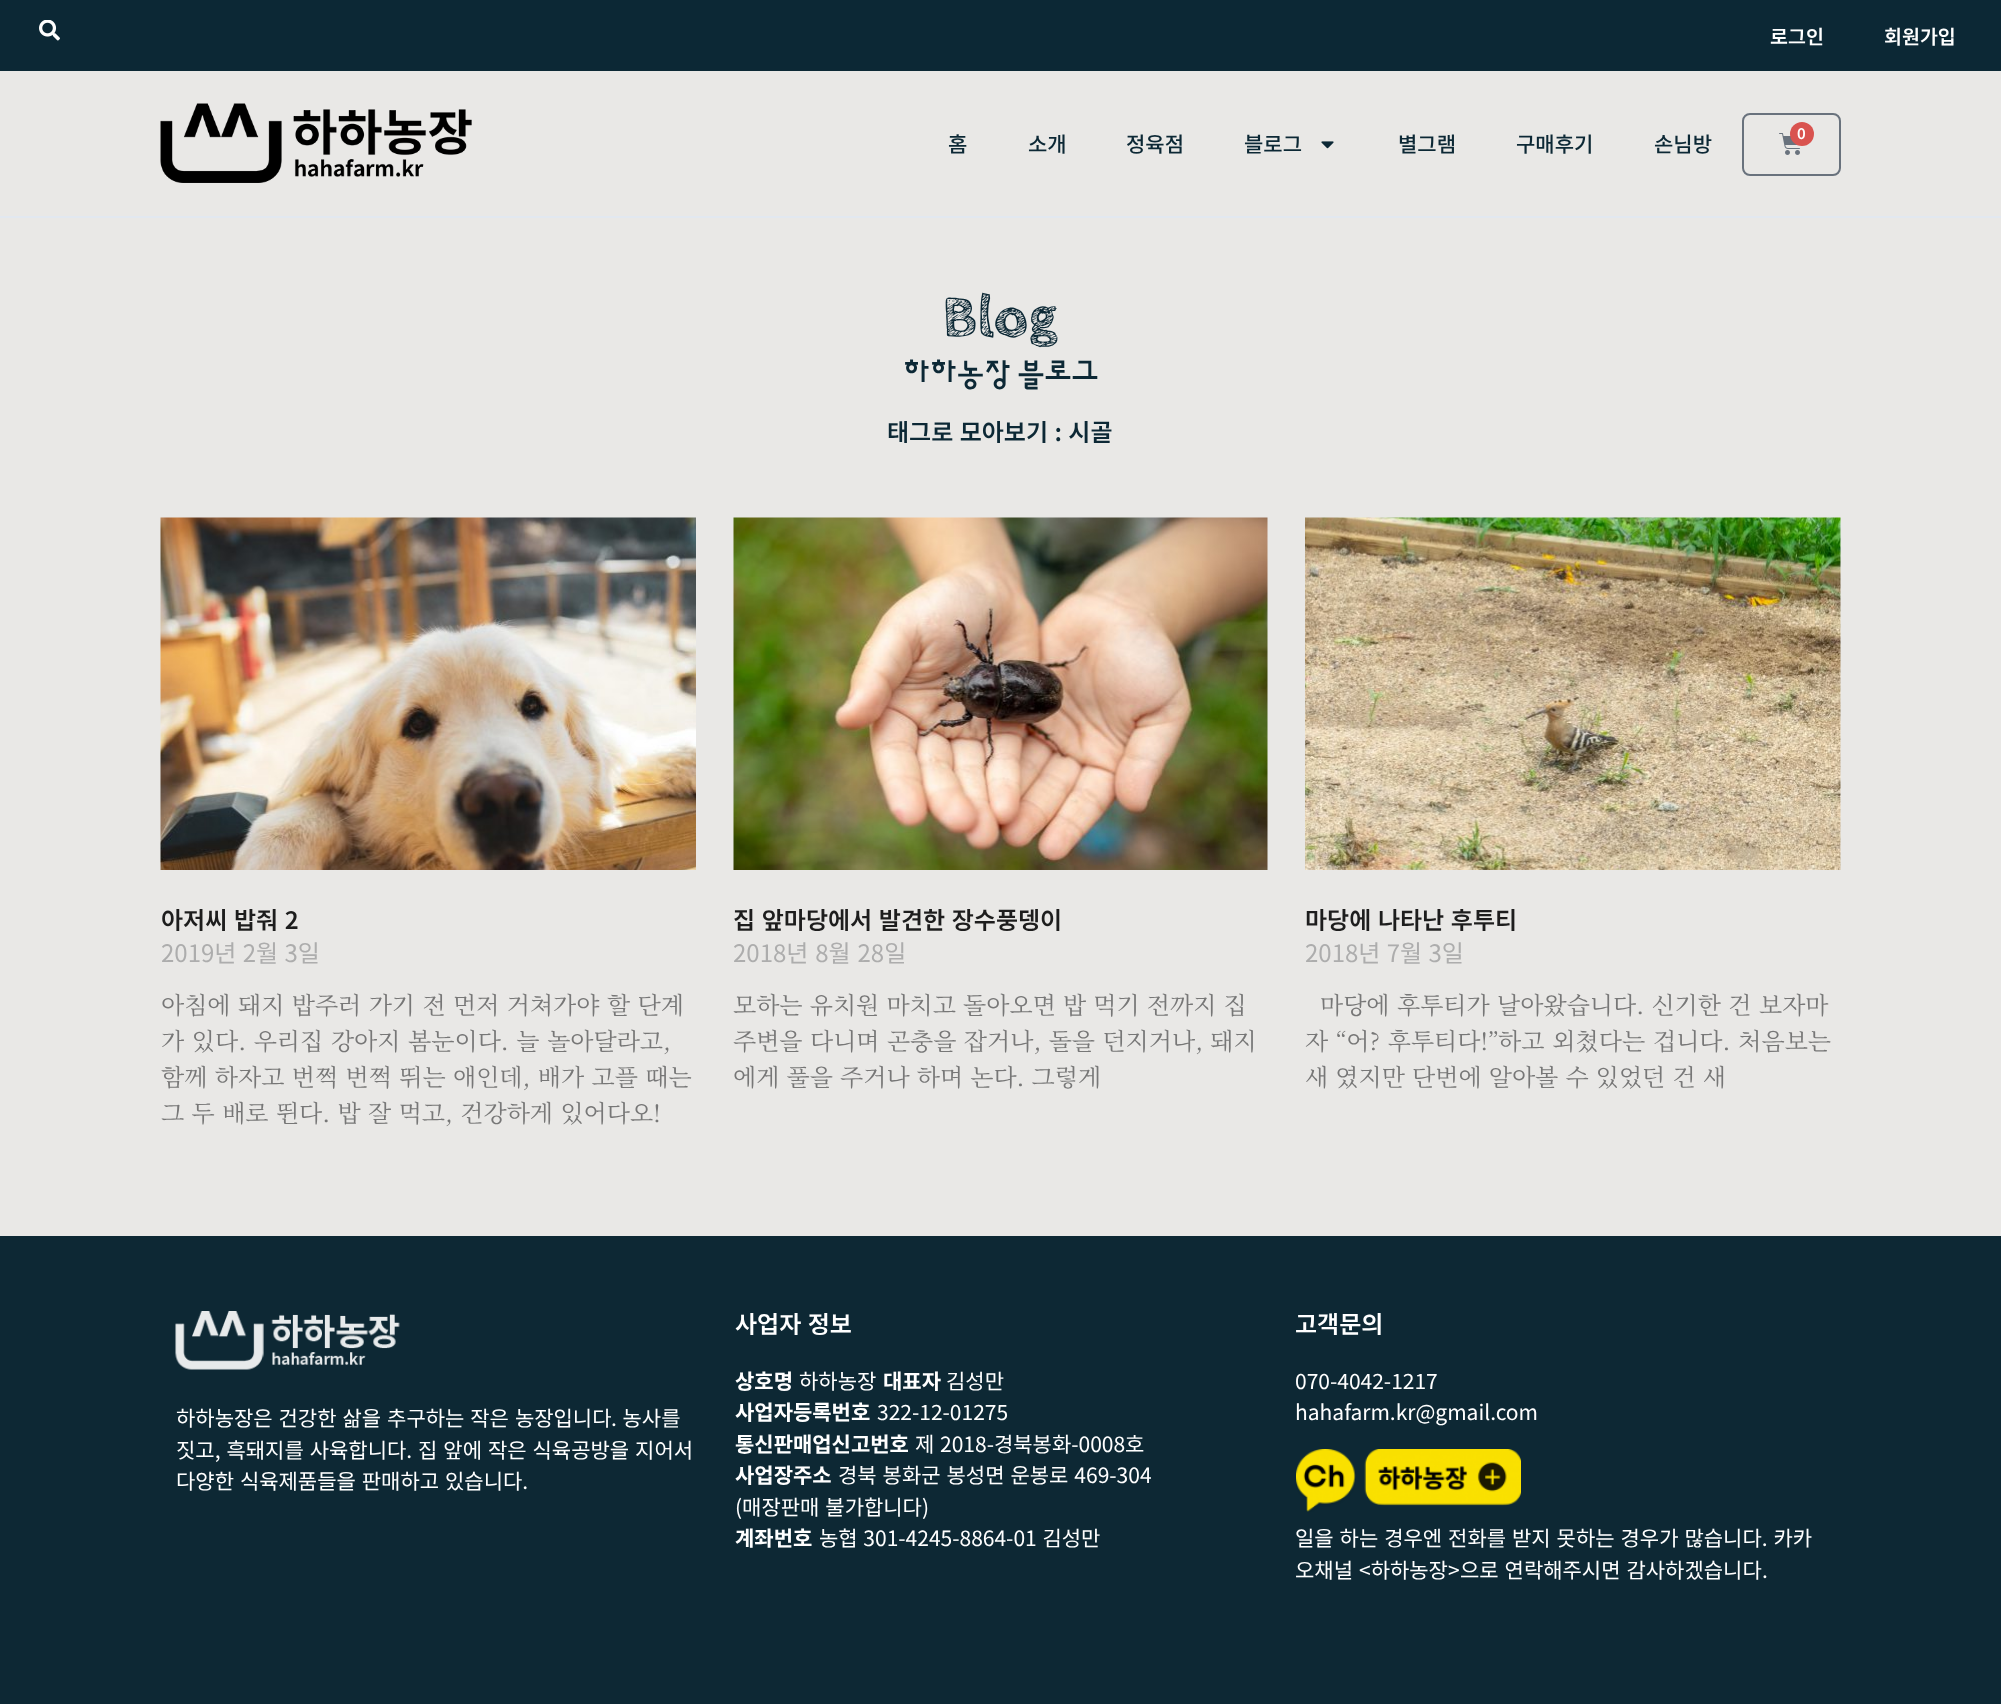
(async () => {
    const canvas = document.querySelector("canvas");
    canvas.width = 2001;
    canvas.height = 1704;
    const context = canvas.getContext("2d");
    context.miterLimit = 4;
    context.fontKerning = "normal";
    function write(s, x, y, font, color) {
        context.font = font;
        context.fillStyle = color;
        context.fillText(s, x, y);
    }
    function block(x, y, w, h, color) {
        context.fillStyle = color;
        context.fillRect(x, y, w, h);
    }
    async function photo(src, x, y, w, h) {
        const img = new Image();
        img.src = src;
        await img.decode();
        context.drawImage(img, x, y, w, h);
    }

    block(0, 0, 2001, 1704, "rgb(233, 232, 230)");
    block(0, 0, 2001, 71, "rgb(12, 40, 53)");
    await photo("media/1.png", 39, 20, 21, 21);
    write("로그인", 1770, 44, "600 19.5px Noto Sans KR", "rgb(255, 255, 255)");
    write("회원가입", 1884, 44, "600 19.5px Noto Sans KR", "rgb(255, 255, 255)");
    block(0, 216, 2001, 2, "rgb(226, 232, 240)");
    await photo("media/2.png", 160, 103, 312, 80);
    write("홈", 948, 152, "500 21px Noto Sans KR", "rgb(12, 40, 53)");
    write("소개", 1028, 152, "500 21px Noto Sans KR", "rgb(12, 40, 53)");
    write("정육점", 1126, 152, "500 21px Noto Sans KR", "rgb(12, 40, 53)");
    write("블로그", 1244, 152, "500 21px Noto Sans KR", "rgb(12, 40, 53)");
    await photo("media/3.png", 1321, 141, 13, 8);
    write("별그램", 1398, 152, "500 21px Noto Sans KR", "rgb(12, 40, 53)");
    write("구매후기", 1516, 152, "500 21px Noto Sans KR", "rgb(12, 40, 53)");
    write("손님방", 1654, 152, "500 21px Noto Sans KR", "rgb(12, 40, 53)");
    context.beginPath();
    context.roundRect(1743, 114, 97, 61, 7);
    context.strokeStyle = "rgb(105, 114, 125)";
    context.lineWidth = 2;
    context.stroke();
    await photo("media/4.png", 1779, 133, 21, 22);
    context.fillStyle = "rgb(217, 83, 79)";
    context.beginPath();
    context.arc(1802, 134, 12, 0, Math.PI * 2);
    context.fill();
    write("0", 1797, 139, "600 15px Noto Sans KR", "rgb(255, 255, 255)");
    write("Blog", 942, 336, "bold 60px Cabin Sketch", "rgb(12, 40, 53)");
    write("하하농장 블로그", 903, 383, "500 30px Sunflower", "rgb(12, 40, 53)");
    context.wordSpacing = "1px";
    write("태그로 모아보기 : 시골", 887, 441, "600 24px Noto Sans KR", "rgb(12, 40, 53)");
    await photo("media/5.png", 160, 517, 536, 353);
    context.wordSpacing = "1.25px";
    write("아저씨 밥줘 2", 161, 929, "600 24px Noto Sans KR", "rgb(29, 29, 29)");
    context.wordSpacing = "1px";
    write("2019년 2월 3일", 161, 962, "24px Noto Sans KR", "rgb(173, 173, 173)");
    context.wordSpacing = "1.25px";
    write("아침에 돼지 밥주러 가기 전 먼저 거쳐가야 할 단계", 161, 1014, "24px Noto Serif KR", "rgb(119, 119, 119)");
    context.wordSpacing = "1.5px";
    write("가 있다. 우리집 강아지 봄눈이다. 늘 놀아달라고,", 161, 1050, "24px Noto Serif KR", "rgb(119, 119, 119)");
    context.wordSpacing = "1.25px";
    write("함께 하자고 번쩍 번쩍 뛰는 애인데, 배가 고플 때는", 161, 1086, "24px Noto Serif KR", "rgb(119, 119, 119)");
    write("그 두 배로 뛴다. 밥 잘 먹고, 건강하게 있어다오!", 161, 1122, "24px Noto Serif KR", "rgb(119, 119, 119)");
    await photo("media/6.png", 733, 517, 535, 353);
    write("집 앞마당에서 발견한 장수풍뎅이", 733, 929, "600 24px Noto Sans KR", "rgb(29, 29, 29)");
    context.wordSpacing = "1.5px";
    write("2018년 8월 28일", 733, 962, "24px Noto Sans KR", "rgb(173, 173, 173)");
    context.wordSpacing = "1px";
    write("모하는 유치원 마치고 돌아오면 밥 먹기 전까지 집", 733, 1014, "24px Noto Serif KR", "rgb(119, 119, 119)");
    context.wordSpacing = "1.25px";
    write("주변을 다니며 곤충을 잡거나, 돌을 던지거나, 돼지", 733, 1050, "24px Noto Serif KR", "rgb(119, 119, 119)");
    context.wordSpacing = "1px";
    write("에게 풀을 주거나 하며 논다. 그렇게", 733, 1086, "24px Noto Serif KR", "rgb(119, 119, 119)");
    await photo("media/7.png", 1305, 517, 536, 353);
    context.wordSpacing = "1.25px";
    write("마당에 나타난 후투티", 1305, 929, "600 24px Noto Sans KR", "rgb(29, 29, 29)");
    context.wordSpacing = "1px";
    write("2018년 7월 3일", 1305, 962, "24px Noto Sans KR", "rgb(173, 173, 173)");
    context.wordSpacing = "1.25px";
    write("마당에 후투티가 날아왔습니다. 신기한 건 보자마", 1320, 1014, "24px Noto Serif KR", "rgb(119, 119, 119)");
    context.wordSpacing = "1.75px";
    write("자 “어? 후투티다!”하고 외쳤다는 겁니다. 처음보는", 1305, 1050, "24px Noto Serif KR", "rgb(119, 119, 119)");
    context.wordSpacing = "1px";
    write("새 였지만 단번에 알아볼 수 있었던 건 새", 1305, 1086, "24px Noto Serif KR", "rgb(119, 119, 119)");
    block(0, 1236, 2001, 468, "rgb(13, 40, 52)");
    await photo("media/8.png", 175, 1311, 225, 59);
    context.wordSpacing = "1.25px";
    write("하하농장은 건강한 삶을 추구하는 작은 농장입니다", 176, 1426, "21px Noto Sans KR", "rgb(255, 255, 255)");
    context.wordSpacing = "1px";
    write(". 농사를", 611, 1426, "21px Noto Sans KR", "rgb(255, 255, 255)");
    context.wordSpacing = "1.25px";
    write("짓고, 흑돼지를 사육합니다. 집 앞에 작은 식육공방을 지어서", 176, 1458, "21px Noto Sans KR", "rgb(255, 255, 255)");
    write("다양한 식육제품들을 판매하고 있습니다.", 176, 1489, "21px Noto Sans KR", "rgb(255, 255, 255)");
    context.wordSpacing = "1px";
    write("사업자 정보", 735, 1333, "600 24px Noto Sans KR", "rgb(255, 255, 255)");
    context.wordSpacing = "0px";
    write("상호명", 735, 1389, "bold 21px Noto Sans KR", "rgb(255, 255, 255)");
    write("하하농장", 799, 1389, "21px Noto Sans KR", "rgb(255, 255, 255)");
    write("대표자", 883, 1389, "bold 21px Noto Sans KR", "rgb(255, 255, 255)");
    write("김성만", 946, 1389, "21px Noto Sans KR", "rgb(255, 255, 255)");
    write("사업자등록번호", 735, 1420, "bold 21px Noto Sans KR", "rgb(255, 255, 255)");
    write("322-12-01275", 877, 1420, "21px Noto Sans KR", "rgb(255, 255, 255)");
    write("통신판매업신고번호", 735, 1452, "bold 21px Noto Sans KR", "rgb(255, 255, 255)");
    context.wordSpacing = "1px";
    write("제 2018-경북봉화-0008호", 915, 1452, "21px Noto Sans KR", "rgb(255, 255, 255)");
    context.wordSpacing = "0px";
    write("사업장주소", 735, 1483, "bold 21px Noto Sans KR", "rgb(255, 255, 255)");
    context.wordSpacing = "1.25px";
    write("경북 봉화군 봉성면 운봉로 469-304", 838, 1483, "21px Noto Sans KR", "rgb(255, 255, 255)");
    write("(매장판매 불가합니다)", 735, 1515, "21px Noto Sans KR", "rgb(255, 255, 255)");
    context.wordSpacing = "0px";
    write("계좌번호", 735, 1546, "bold 21px Noto Sans KR", "rgb(255, 255, 255)");
    context.wordSpacing = "1px";
    write("농협 301-4245-8864-01 김성만", 819, 1546, "21px Noto Sans KR", "rgb(255, 255, 255)");
    context.wordSpacing = "0px";
    write("고객문의", 1295, 1333, "600 24px Noto Sans KR", "rgb(255, 255, 255)");
    write("070-4042-1217", 1295, 1389, "21px Noto Sans KR", "rgb(255, 255, 255)");
    write("hahafarm.kr@gmail.com", 1295, 1420, "21px Noto Sans KR", "rgb(255, 255, 255)");
    await photo("media/9.png", 1296, 1449, 225, 63);
    context.wordSpacing = "1.25px";
    write("일을 하는 경우엔 전화를 받지 못하는 경우가 많습니다. 카카", 1295, 1546, "21px Noto Sans KR", "rgb(255, 255, 255)");
    context.wordSpacing = "0px";
    write("오채널", 1295, 1578, "21px Noto Sans KR", "rgb(255, 255, 255)");
    write("<하하농장>", 1359, 1578, "21px Noto Sans KR", "rgb(255, 255, 255)");
    context.wordSpacing = "1.25px";
    write("으로 연락해주시면 감사하겠습니다", 1460, 1578, "21px Noto Sans KR", "rgb(255, 255, 255)");
    context.wordSpacing = "0px";
    write(".", 1762, 1578, "21px Noto Sans KR", "rgb(255, 255, 255)");
})();
